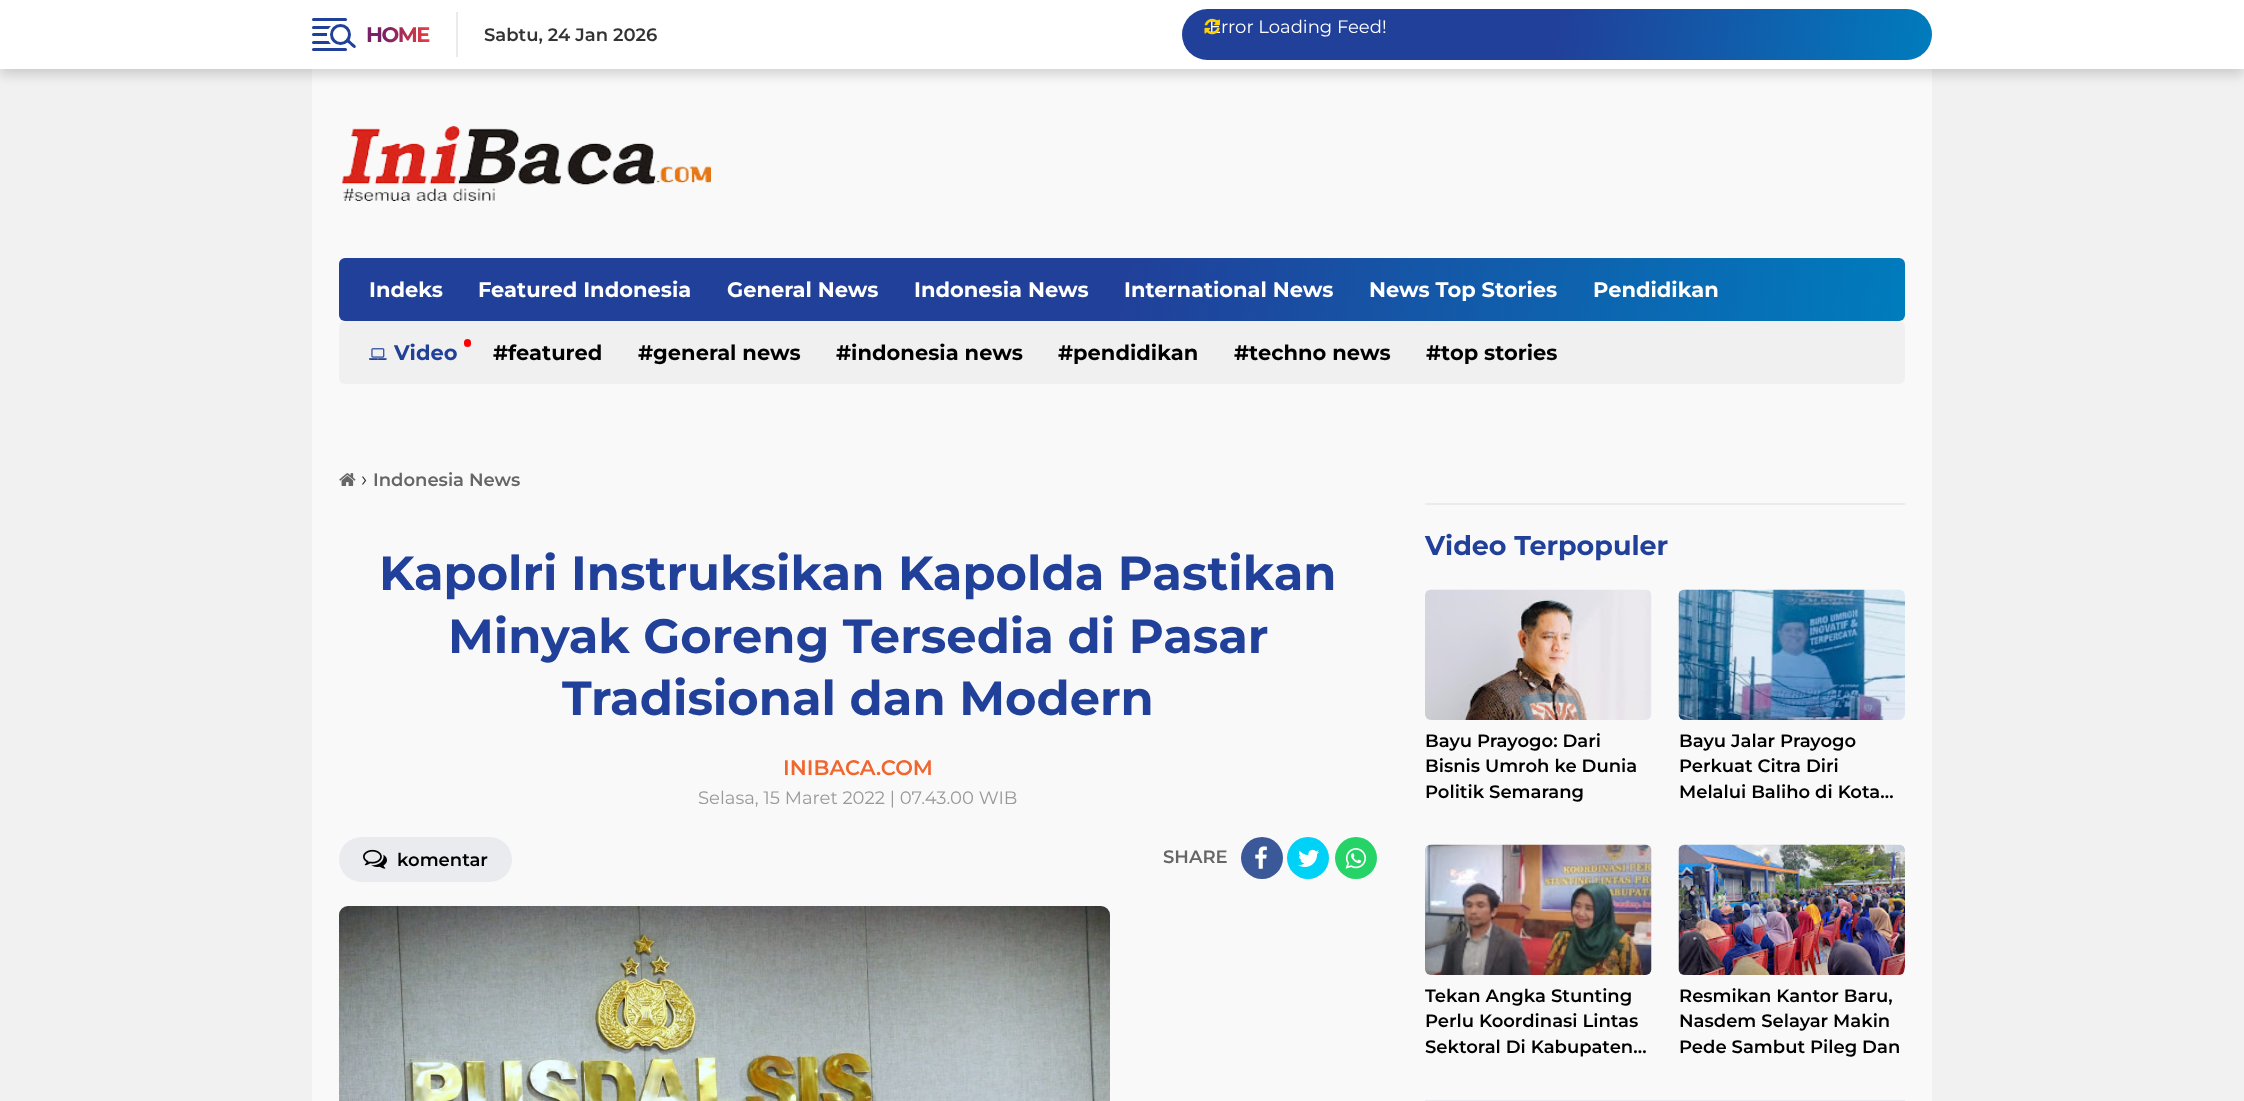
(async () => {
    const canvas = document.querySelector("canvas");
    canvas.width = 2244;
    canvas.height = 1101;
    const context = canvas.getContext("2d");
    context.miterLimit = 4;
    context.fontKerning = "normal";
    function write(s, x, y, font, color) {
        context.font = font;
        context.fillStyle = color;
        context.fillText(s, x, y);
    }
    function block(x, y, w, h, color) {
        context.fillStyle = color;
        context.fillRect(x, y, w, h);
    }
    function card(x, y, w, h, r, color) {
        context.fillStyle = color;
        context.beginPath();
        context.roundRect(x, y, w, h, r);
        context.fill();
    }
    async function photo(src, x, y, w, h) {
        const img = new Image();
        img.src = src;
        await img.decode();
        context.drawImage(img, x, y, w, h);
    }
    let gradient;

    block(0, 0, 2244, 1101, "rgb(241, 241, 241)");
    block(312, 69, 1620, 1032, "rgb(249, 249, 249)");
    context.fillStyle = "rgba(0, 0, 0, 0.15)";
    context.filter = "blur(6px)";
    context.beginPath();
    context.rect(0, 6, 2244, 69);
    context.fill();
    context.filter = "none";
    block(0, 0, 2244, 69, "rgb(255, 255, 255)");
    card(312, 18, 35, 3, 1.5, "rgb(33, 64, 154)");
    card(312, 26, 35, 3, 1.5, "rgb(33, 64, 154)");
    card(312, 33, 35, 3, 1.5, "rgb(33, 64, 154)");
    card(312, 41, 35, 3, 1.5, "rgb(33, 64, 154)");
    context.fillStyle = "rgb(255, 255, 255)";
    context.beginPath();
    context.arc(339, 35, 12, 0, Math.PI * 2);
    context.fill();
    context.beginPath();
    context.arc(340.5, 34.5, 9, 0, Math.PI * 2);
    context.strokeStyle = "rgb(33, 64, 154)";
    context.lineWidth = 3;
    context.stroke();
    context.fillStyle = "rgb(33, 64, 154)";
    context.beginPath();
    context.moveTo(346.5, 39.5);
    context.bezierCurveTo(348, 37.5, 351, 41.5, 352, 42.5);
    context.bezierCurveTo(353, 43.5, 357, 45.5, 355.5, 47.5);
    context.bezierCurveTo(354, 49.5, 351, 45.5, 350, 44.5);
    context.bezierCurveTo(349, 43.5, 345, 41.5, 346.5, 39.5);
    context.closePath();
    context.fill();
    card(312, 48, 35, 3, 1.5, "rgb(33, 64, 154)");
    block(456, 12, 2, 45, "rgb(233, 235, 238)");
    context.letterSpacing = "-1.5px";
    context.font = "bold 21px Montserrat";
    gradient = context.createLinearGradient(366, 35, 429, 35);
    gradient.addColorStop(0.3, "rgb(121, 33, 102)");
    gradient.addColorStop(1, "rgb(237, 60, 63)");
    context.fillStyle = gradient;
    context.fillText("HOME", 366, 42);
    context.letterSpacing = "0px";
    write("Sabtu, 24 Jan 2026", 484, 41, "600 18px Montserrat", "rgb(51, 51, 51)");
    gradient = context.createLinearGradient(1189, -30, 1925, 99);
    gradient.addColorStop(0.5, "rgb(33, 64, 154)");
    gradient.addColorStop(1, "rgb(0, 124, 189)");
    context.fillStyle = gradient;
    context.beginPath();
    context.roundRect(1182, 9, 750, 51, 25.5);
    context.fill();
    write("Error Loading Feed!", 1209, 33, "18px Montserrat", "rgb(255, 255, 255)");
    await photo("media/1.png", 1204, 18, 16, 17);
    await photo("media/2.png", 341, 126, 370, 75);
    gradient = context.createLinearGradient(357, 155, 1887, 424);
    gradient.addColorStop(0.5, "rgb(33, 64, 154)");
    gradient.addColorStop(1, "rgb(0, 124, 189)");
    context.fillStyle = gradient;
    context.beginPath();
    context.roundRect(339, 258, 1566, 63, 6);
    context.fill();
    write("Indeks", 369, 297, "bold 21px Montserrat", "rgb(255, 255, 255)");
    write("Featured Indonesia", 478, 297, "bold 21px Montserrat", "rgb(255, 255, 255)");
    write("General News", 727, 297, "bold 21px Montserrat", "rgb(255, 255, 255)");
    write("Indonesia News", 914, 297, "bold 21px Montserrat", "rgb(255, 255, 255)");
    write("International News", 1124, 297, "bold 21px Montserrat", "rgb(255, 255, 255)");
    write("News Top Stories", 1369, 297, "bold 21px Montserrat", "rgb(255, 255, 255)");
    write("Pendidikan", 1593, 297, "bold 21px Montserrat", "rgb(255, 255, 255)");
    card(339, 321, 1566, 63, 6, "rgb(240, 240, 240)");
    await photo("media/3.png", 369, 348, 18, 12);
    write("Video", 394, 360, "bold 21px Montserrat", "rgb(33, 64, 154)");
    card(464, 339, 7, 8, 3.5, "rgb(255, 0, 0)");
    write("#featured", 493, 360, "bold 21px Montserrat", "rgb(0, 0, 0)");
    write("#general news", 638, 360, "bold 21px Montserrat", "rgb(0, 0, 0)");
    write("#indonesia news", 836, 360, "bold 21px Montserrat", "rgb(0, 0, 0)");
    write("#pendidikan", 1058, 360, "bold 21px Montserrat", "rgb(0, 0, 0)");
    write("#techno news", 1234, 360, "bold 21px Montserrat", "rgb(0, 0, 0)");
    write("#top stories", 1426, 360, "bold 21px Montserrat", "rgb(0, 0, 0)");
    await photo("media/4.png", 339, 473, 17, 13);
    write("›", 361, 486, "21px Montserrat", "rgb(51, 51, 51)");
    write("Indonesia News", 373, 486, "600 18px Montserrat", "rgb(102, 102, 102)");
    write("Kapolri Instruksikan Kapolda Pastikan", 379, 590, "bold 48px Montserrat", "rgb(33, 64, 154)");
    write("Minyak Goreng Tersedia di Pasar", 448, 653, "bold 48px Montserrat", "rgb(33, 64, 154)");
    write("Tradisional dan Modern", 562, 715, "bold 48px Montserrat", "rgb(33, 64, 154)");
    write("INIBACA.COM", 783, 775, "600 21px Montserrat", "rgb(239, 102, 47)");
    write("Selasa, 15 Maret 2022 | 07.43.00 WIB", 698, 804, "18px Montserrat", "rgb(153, 153, 153)");
    card(339, 837, 173, 45, 22.5, "rgb(233, 235, 238)");
    await photo("media/5.png", 363, 849, 24, 20);
    write("komentar", 397, 866, "600 18px Montserrat", "rgb(0, 0, 0)");
    write("SHARE", 1163, 863, "600 18px Montserrat", "rgb(102, 102, 102)");
    context.fillStyle = "rgb(59, 89, 152)";
    context.beginPath();
    context.arc(1262, 858, 21, 0, Math.PI * 2);
    context.fill();
    await photo("media/6.png", 1255, 846, 12, 23);
    context.fillStyle = "rgb(0, 209, 247)";
    context.beginPath();
    context.arc(1308, 858, 21, 0, Math.PI * 2);
    context.fill();
    await photo("media/7.png", 1298, 849, 21, 18);
    context.fillStyle = "rgb(37, 211, 102)";
    context.beginPath();
    context.arc(1356, 858, 21, 0, Math.PI * 2);
    context.fill();
    await photo("media/8.png", 1345, 848, 22, 21);
    await photo("media/9.png", 339, 906, 771, 195);
    block(1425, 503, 480, 2, "rgb(233, 235, 238)");
    write("Video Terpopuler", 1425, 555, "bold 27px Montserrat", "rgb(33, 64, 154)");
    await photo("media/10.png", 1425, 589, 227, 131);
    write("Bayu Prayogo: Dari", 1425, 747, "600 18px Montserrat", "rgb(0, 0, 0)");
    write("Bisnis Umroh ke Dunia", 1425, 772, "600 18px Montserrat", "rgb(0, 0, 0)");
    write("Politik Semarang", 1425, 798, "600 18px Montserrat", "rgb(0, 0, 0)");
    await photo("media/11.png", 1678, 589, 227, 131);
    write("Bayu Jalar Prayogo", 1679, 747, "600 18px Montserrat", "rgb(0, 0, 0)");
    write("Perkuat Citra Diri", 1679, 772, "600 18px Montserrat", "rgb(0, 0, 0)");
    write("Melalui Baliho di Kota…", 1679, 798, "600 18px Montserrat", "rgb(0, 0, 0)");
    await photo("media/12.png", 1425, 844, 227, 131);
    write("Tekan Angka Stunting", 1425, 1002, "600 18px Montserrat", "rgb(0, 0, 0)");
    write("Perlu Koordinasi Lintas", 1425, 1027, "600 18px Montserrat", "rgb(0, 0, 0)");
    write("Sektoral Di Kabupaten…", 1425, 1053, "600 18px Montserrat", "rgb(0, 0, 0)");
    await photo("media/13.png", 1678, 844, 227, 131);
    write("Resmikan Kantor Baru,", 1679, 1002, "600 18px Montserrat", "rgb(0, 0, 0)");
    write("Nasdem Selayar Makin", 1679, 1027, "600 18px Montserrat", "rgb(0, 0, 0)");
    write("Pede Sambut Pileg Dan", 1679, 1053, "600 18px Montserrat", "rgb(0, 0, 0)");
    block(1425, 1100, 480, 1, "rgb(233, 235, 238)");
})();
